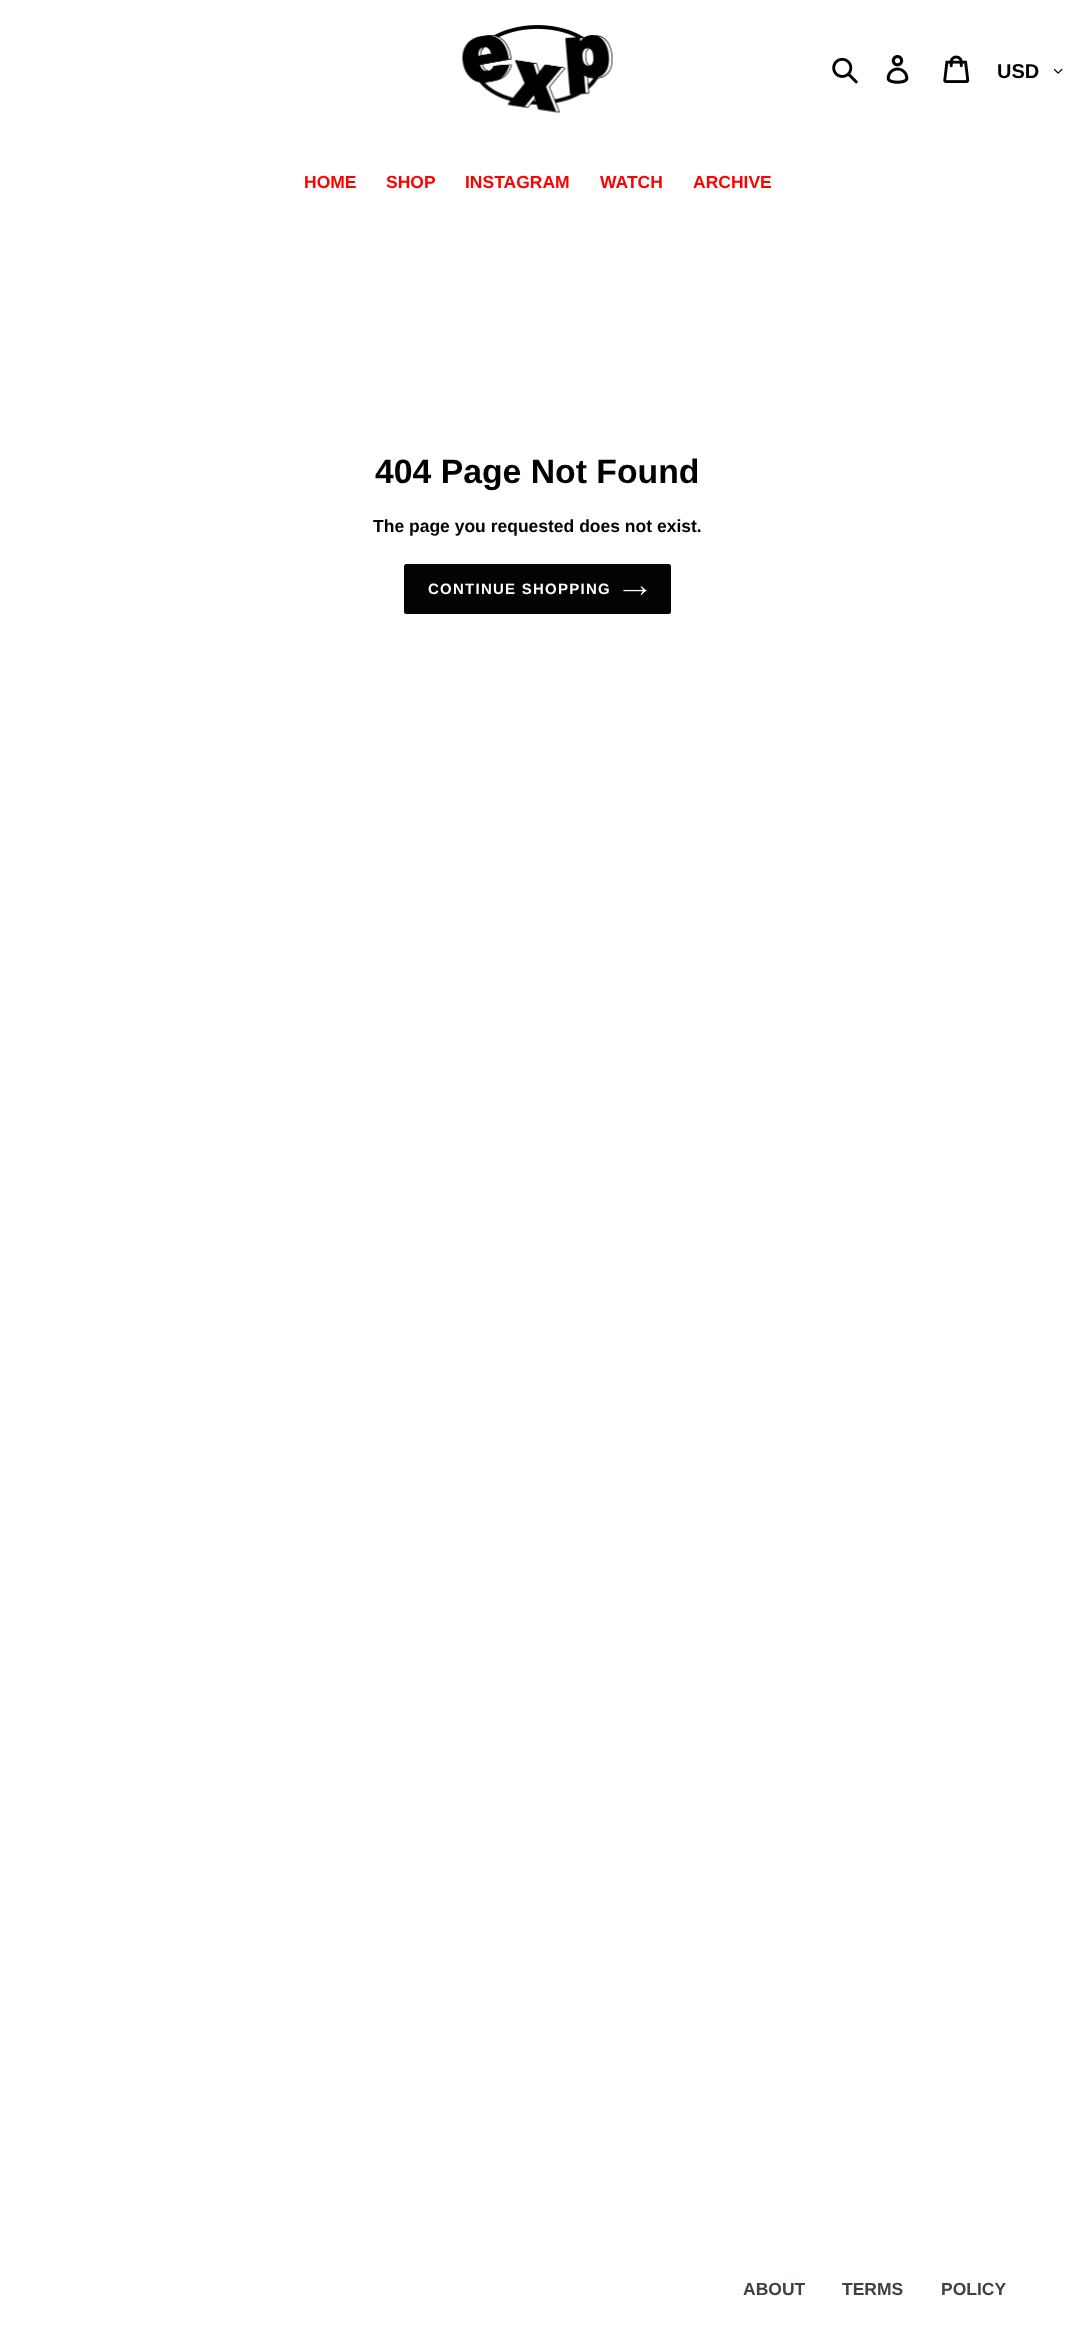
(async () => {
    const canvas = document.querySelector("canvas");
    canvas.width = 1074;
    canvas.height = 2336;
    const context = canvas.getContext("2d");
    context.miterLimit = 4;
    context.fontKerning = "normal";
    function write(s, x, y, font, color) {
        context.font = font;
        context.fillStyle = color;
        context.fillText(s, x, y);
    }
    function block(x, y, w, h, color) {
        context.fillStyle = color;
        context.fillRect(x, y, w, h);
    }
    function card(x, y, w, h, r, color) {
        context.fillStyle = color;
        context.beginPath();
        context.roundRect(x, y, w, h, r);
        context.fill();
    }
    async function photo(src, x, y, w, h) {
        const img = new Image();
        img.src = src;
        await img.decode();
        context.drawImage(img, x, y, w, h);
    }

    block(0, 0, 1074, 2336, "rgb(255, 255, 255)");
    await photo("media/1.png", 462, 25, 151, 88);
    await photo("media/2.png", 832, 57, 26, 27);
    await photo("media/3.png", 886, 55, 23, 29);
    await photo("media/4.png", 943, 55, 27, 28);
    write("USD", 997, 78, "bold 20px Liberation Sans", "rgb(0, 0, 0)");
    await photo("media/5.png", 1054, 68, 9, 6);
    write("HOME", 304, 188, "bold 17.5px Liberation Sans", "rgb(255, 0, 0)");
    write("SHOP", 386, 188, "bold 17.5px Liberation Sans", "rgb(255, 0, 0)");
    write("INSTAGRAM", 465, 188, "bold 17.5px Liberation Sans", "rgb(255, 0, 0)");
    write("WATCH", 600, 188, "bold 17.5px Liberation Sans", "rgb(255, 0, 0)");
    write("ARCHIVE", 693, 188, "bold 17.5px Liberation Sans", "rgb(255, 0, 0)");
    write("404 Page Not Found", 375, 483, "bold 33.75px Liberation Sans", "rgb(0, 0, 0)");
    write("The page you requested does not exist.", 373, 532, "bold 17.5px Liberation Sans", "rgb(0, 0, 0)");
    card(404, 564, 267, 50, 2.5, "rgb(3, 3, 3)");
    context.letterSpacing = "1.25px";
    write("CONTINUE SHOPPING", 428, 594, "bold 15px Liberation Sans", "rgb(255, 255, 255)");
    await photo("media/6.png", 623, 586, 24, 9);
    context.letterSpacing = "0px";
    write("ABOUT", 743, 2295, "bold 17.5px Liberation Sans", "rgb(61, 66, 70)");
    write("TERMS", 842, 2295, "bold 17.5px Liberation Sans", "rgb(61, 66, 70)");
    write("POLICY", 941, 2295, "bold 17.5px Liberation Sans", "rgb(61, 66, 70)");
})();
